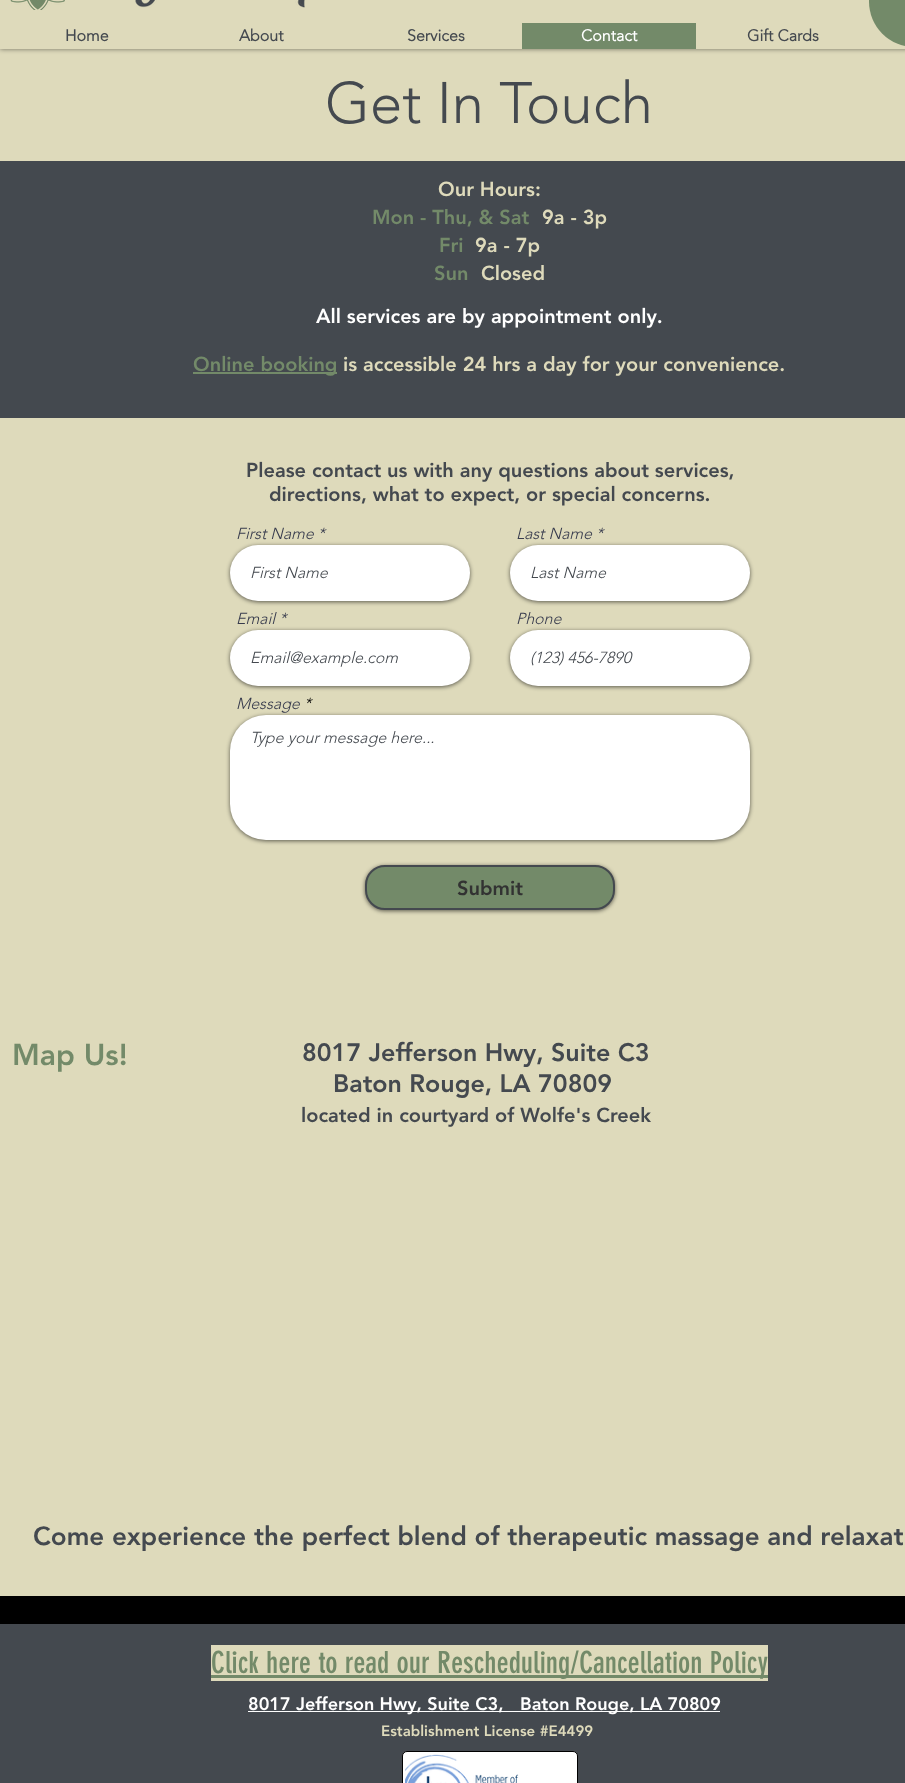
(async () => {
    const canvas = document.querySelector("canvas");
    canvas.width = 905;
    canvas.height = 1783;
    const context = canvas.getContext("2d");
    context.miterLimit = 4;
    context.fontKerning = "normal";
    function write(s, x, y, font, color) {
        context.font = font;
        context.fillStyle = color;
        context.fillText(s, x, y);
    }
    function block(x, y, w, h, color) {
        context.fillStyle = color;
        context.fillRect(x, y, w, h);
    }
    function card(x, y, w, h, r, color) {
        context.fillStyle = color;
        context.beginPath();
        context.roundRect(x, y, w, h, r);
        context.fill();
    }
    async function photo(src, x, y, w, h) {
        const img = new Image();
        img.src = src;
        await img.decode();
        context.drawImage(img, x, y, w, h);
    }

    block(0, 0, 905, 1783, "rgb(0, 0, 0)");
    block(0, 49, 905, 112, "rgb(222, 218, 187)");
    context.fillStyle = "rgba(0, 0, 0, 0.5)";
    context.filter = "blur(2.5px)";
    context.beginPath();
    context.rect(0, -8, 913, 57);
    context.fill();
    context.filter = "none";
    block(0, 0, 905, 49, "rgb(222, 218, 187)");
    await photo("media/1.png", 10, 0, 55, 10);
    await photo("media/2.png", 135, 0, 170, 8);
    card(869, -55, 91, 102, 55, "rgb(115, 138, 105)");
    write("Home", 65, 41, "bold 16px 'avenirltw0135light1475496'", "rgb(68, 73, 79)");
    write("About", 239, 41, "bold 16px 'avenirltw0135light1475496'", "rgb(68, 73, 79)");
    write("Services", 407, 41, "bold 16px 'avenirltw0135light1475496'", "rgb(68, 73, 79)");
    block(522, 23, 174, 26, "rgb(115, 138, 105)");
    write("Contact", 581, 41, "bold 16px 'avenirltw0135light1475496'", "rgb(255, 255, 255)");
    write("Gift Cards", 747, 41, "bold 16px 'avenirltw0135light1475496'", "rgb(68, 73, 79)");
    write("Get In Touch", 325, 123, "300 58px 'avenirltw0135light1475496'", "rgb(68, 73, 79)");
    block(0, 161, 905, 257, "rgb(68, 73, 79)");
    write("Our Hours:", 438, 196, "900 20px 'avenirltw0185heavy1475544'", "rgb(222, 218, 187)");
    write("Mon - Thu, & Sat", 372, 224, "900 20px 'avenirltw0185heavy1475544'", "rgb(115, 138, 105)");
    write("9a - 3p", 542, 224, "900 20px 'avenirltw0185heavy1475544'", "rgb(222, 218, 187)");
    write("Fri", 439, 252, "900 20px 'avenirltw0185heavy1475544'", "rgb(115, 138, 105)");
    write("9a - 7p", 475, 252, "900 20px 'avenirltw0185heavy1475544'", "rgb(222, 218, 187)");
    write("Sun", 434, 280, "900 20px 'avenirltw0185heavy1475544'", "rgb(115, 138, 105)");
    write("Closed", 481, 280, "900 20px 'avenirltw0185heavy1475544'", "rgb(222, 218, 187)");
    write("All services are by appointment only.", 316, 323, "900 20px 'avenirltw0185heavy1475544'", "rgb(255, 255, 255)");
    block(193, 372, 144, 2, "rgb(115, 138, 105)");
    write("Online booking", 193, 371, "900 20px 'avenirltw0185heavy1475544'", "rgb(115, 138, 105)");
    write("is accessible 24 hrs a day for your convenience.", 343, 371, "900 20px 'avenirltw0185heavy1475544'", "rgb(222, 218, 187)");
    block(0, 418, 905, 1178, "rgb(222, 218, 187)");
    write("Please contact us with any questions about services,", 246, 477, "900 20px 'avenirltw0185heavy1475544'", "rgb(68, 73, 79)");
    write("directions, what to expect, or special concerns.", 269, 501, "900 20px 'avenirltw0185heavy1475544'", "rgb(68, 73, 79)");
    write("First Name *", 236, 539, "italic 300 16px 'avenirltw0135light1475496'", "rgb(55, 59, 77)");
    context.fillStyle = "rgba(0, 0, 0, 0.6)";
    context.filter = "blur(2px)";
    context.beginPath();
    context.roundRect(230, 546, 240, 56, 28);
    context.fill();
    context.filter = "none";
    card(230, 545, 240, 56, 28, "rgb(255, 255, 255)");
    write("First Name", 250, 578, "italic 300 16px 'avenirltw0135light1475496'", "rgb(68, 73, 79)");
    write("Last Name *", 516, 539, "italic 300 16px 'avenirltw0135light1475496'", "rgb(55, 59, 77)");
    context.fillStyle = "rgba(0, 0, 0, 0.6)";
    context.filter = "blur(2px)";
    context.beginPath();
    context.roundRect(510, 546, 240, 56, 28);
    context.fill();
    context.filter = "none";
    card(510, 545, 240, 56, 28, "rgb(255, 255, 255)");
    write("Last Name", 530, 578, "italic 300 16px 'avenirltw0135light1475496'", "rgb(68, 73, 79)");
    write("Email *", 236, 624, "italic 300 16px 'avenirltw0135light1475496'", "rgb(55, 59, 77)");
    context.fillStyle = "rgba(0, 0, 0, 0.6)";
    context.filter = "blur(2px)";
    context.beginPath();
    context.roundRect(230, 631, 240, 56, 28);
    context.fill();
    context.filter = "none";
    card(230, 630, 240, 56, 28, "rgb(255, 255, 255)");
    write("Email@example.com", 250, 663, "italic 300 16px 'avenirltw0135light1475496'", "rgb(68, 73, 79)");
    write("Phone", 516, 624, "italic 300 16px 'avenirltw0135light1475496'", "rgb(55, 59, 77)");
    context.fillStyle = "rgba(0, 0, 0, 0.6)";
    context.filter = "blur(2px)";
    context.beginPath();
    context.roundRect(510, 631, 240, 56, 28);
    context.fill();
    context.filter = "none";
    card(510, 630, 240, 56, 28, "rgb(255, 255, 255)");
    write("(123) 456-7890", 530, 663, "italic 300 16px 'avenirltw0135light1475496'", "rgb(68, 73, 79)");
    write("Message", 236, 709, "italic 300 16px 'avenirltw0135light1475496'", "rgb(55, 59, 77)");
    write("*", 304, 709, "italic 300 16px 'avenirltw0135light1475496'", "rgb(0, 0, 0)");
    context.fillStyle = "rgba(0, 0, 0, 0.6)";
    context.filter = "blur(2px)";
    context.beginPath();
    context.roundRect(230, 716, 520, 125, 36);
    context.fill();
    context.filter = "none";
    card(230, 715, 520, 125, 36, "rgb(255, 255, 255)");
    write("Type your message here...", 250, 743, "italic 300 16px 'avenirltw0135light1475496'", "rgb(68, 73, 79)");
    context.fillStyle = "rgba(0, 0, 0, 0.6)";
    context.filter = "blur(2px)";
    context.beginPath();
    context.roundRect(365, 866, 250, 45, 20);
    context.fill();
    context.filter = "none";
    context.fillStyle = "rgb(115, 138, 105)";
    context.beginPath();
    context.roundRect(366, 866, 248, 43, 19);
    context.fill();
    context.strokeStyle = "rgb(68, 73, 79)";
    context.lineWidth = 2;
    context.stroke();
    write("Submit", 457, 895, "900 20px 'avenirltw0185heavy1475544'", "rgb(50, 50, 50)");
    write("Map Us!", 12, 1065, "900 30px 'avenirltw0185heavy1475544'", "rgb(115, 138, 105)");
    write("8017 Jefferson Hwy, Suite C3", 302, 1061, "900 25px 'avenirltw0185heavy1475544'", "rgb(68, 73, 79)");
    write("Baton Rouge, LA 70809", 333, 1092, "900 25px 'avenirltw0185heavy1475544'", "rgb(68, 73, 79)");
    write("located in courtyard of Wolfe's Creek", 301, 1122, "900 20px 'avenirltw0185heavy1475544'", "rgb(68, 73, 79)");
    write("Come experience the perfect blend of therapeutic massage and relaxat", 33, 1545, "900 26px 'avenirltw0185heavy1475544'", "rgb(68, 73, 79)");
    block(0, 1624, 905, 159, "rgb(68, 73, 79)");
    block(211, 1645, 557, 36, "rgb(222, 218, 187)");
    block(211, 1675, 557, 3, "rgb(115, 138, 105)");
    write("Click here to read our Rescheduling/Cancellation Policy", 211, 1673, "30px 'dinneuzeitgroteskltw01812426'", "rgb(115, 138, 105)");
    block(248, 1711, 472, 1, "rgb(255, 255, 255)");
    write("8017 Jefferson Hwy, Suite C3,", 248, 1710, "900 18px 'avenirltw0185heavy1475544'", "rgb(255, 255, 255)");
    write("Baton Rouge, LA 70809", 520, 1710, "900 18px 'avenirltw0185heavy1475544'", "rgb(255, 255, 255)");
    write("Establishment License #E4499", 381, 1736, "900 15px 'avenirltw0185heavy1475544'", "rgb(222, 218, 187)");
    context.fillStyle = "rgb(255, 255, 255)";
    context.beginPath();
    context.roundRect(402.5, 1751.5, 175, 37, 4.5);
    context.fill();
    context.strokeStyle = "rgb(0, 0, 0)";
    context.lineWidth = 1;
    context.stroke();
    await photo("media/3.png", 405, 1754, 114, 29);
})();
